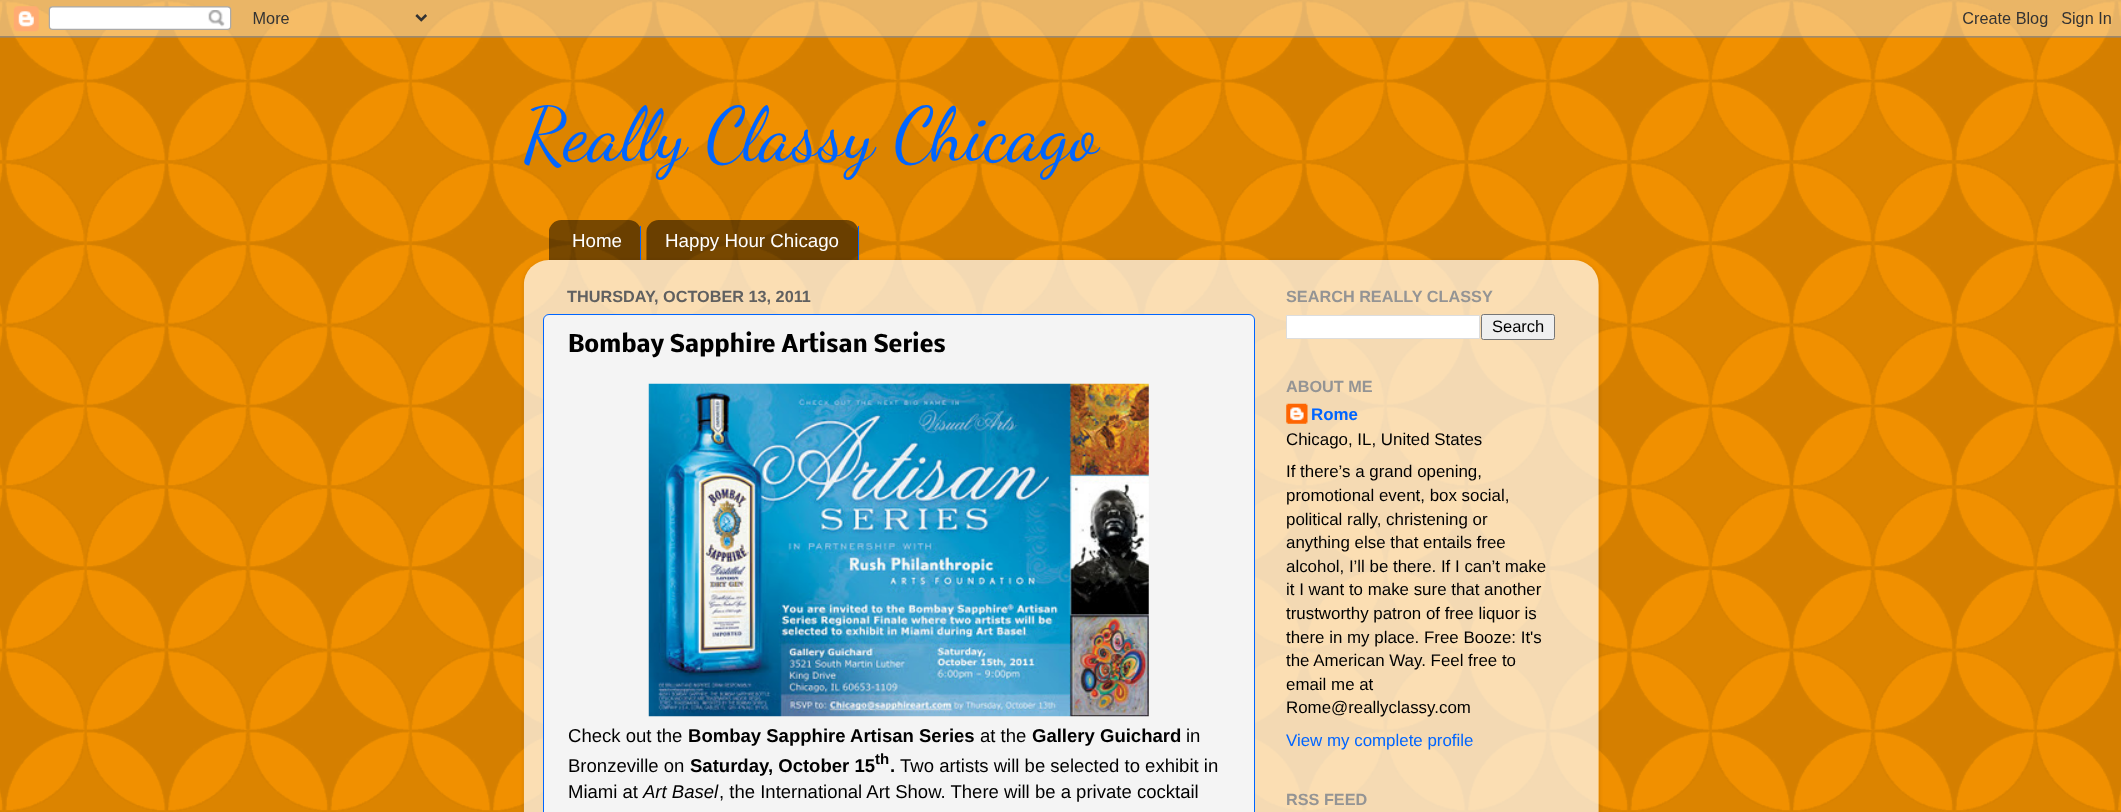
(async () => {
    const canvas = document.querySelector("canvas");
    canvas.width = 2121;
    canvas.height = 812;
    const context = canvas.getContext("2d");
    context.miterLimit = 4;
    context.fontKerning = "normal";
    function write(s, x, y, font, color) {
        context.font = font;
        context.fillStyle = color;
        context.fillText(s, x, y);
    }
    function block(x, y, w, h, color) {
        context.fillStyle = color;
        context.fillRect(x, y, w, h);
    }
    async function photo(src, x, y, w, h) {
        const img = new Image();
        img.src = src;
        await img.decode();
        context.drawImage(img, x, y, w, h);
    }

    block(0, 0, 2121, 812, "rgb(255, 153, 0)");
    await photo("media/1.png", 0, 0, 2121, 812);
    await photo("media/2.png", 0, 0, 2121, 38);
    write("Really Classy Chicago", 523, 159, "75px Dancing Script", "rgb(0, 101, 255)");
    await photo("media/3.png", 549, 220, 93, 40);
    block(640, 226, 1, 34, "rgb(0, 101, 255)");
    write("Home", 572, 247, "18.75px Liberation Sans", "rgb(255, 255, 255)");
    await photo("media/4.png", 646, 220, 212, 40);
    block(858, 226, 1, 34, "rgb(0, 101, 255)");
    write("Happy Hour Chicago", 665, 247, "18.75px Liberation Sans", "rgb(255, 255, 255)");
    context.save();
    context.beginPath();
    context.moveTo(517, 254);
    context.lineTo(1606, 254);
    context.lineTo(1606, 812);
    context.lineTo(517, 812);
    context.closePath();
    context.moveTo(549, 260);
    context.lineTo(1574, 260);
    context.bezierCurveTo(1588, 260, 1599, 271, 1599, 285);
    context.lineTo(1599, 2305);
    context.lineTo(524, 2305);
    context.lineTo(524, 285);
    context.bezierCurveTo(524, 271, 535, 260, 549, 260);
    context.closePath();
    context.clip("evenodd");
    context.fillStyle = "rgba(0, 0, 0, 0.15)";
    context.filter = "blur(2px)";
    context.beginPath();
    context.roundRect(524, 261, 1075, 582, 25);
    context.fill();
    context.filter = "none";
    context.restore();
    await photo("media/5.png", 523, 260, 1076, 552);
    write("THURSDAY, OCTOBER 13, 2011", 567, 302, "bold 16.25px Liberation Sans", "rgb(96, 96, 96)");
    context.fillStyle = "rgb(244, 244, 244)";
    context.beginPath();
    context.roundRect(543.5, 314.5, 711, 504, 5.5);
    context.fill();
    context.strokeStyle = "rgb(0, 101, 255)";
    context.stroke();
    write("Bombay Sapphire Artisan Series", 568, 352, "bold 22.5px Nobile", "rgb(0, 0, 0)");
    await photo("media/6.png", 648, 383, 501, 334);
    write("Check out the", 568, 742, "18.55px Liberation Sans", "rgb(0, 0, 0)");
    write("Bombay Sapphire Artisan Series", 688, 742, "bold 18.55px Liberation Sans", "rgb(0, 0, 0)");
    write("at the", 980, 742, "18.55px Liberation Sans", "rgb(0, 0, 0)");
    write("Gallery Guichard", 1032, 742, "bold 18.55px Liberation Sans", "rgb(0, 0, 0)");
    write("in", 1186, 742, "18.55px Liberation Sans", "rgb(0, 0, 0)");
    write("Bronzeville on", 568, 772, "18.55px Liberation Sans", "rgb(0, 0, 0)");
    write("Saturday, October 15", 690, 772, "bold 18.55px Liberation Sans", "rgb(0, 0, 0)");
    write("th", 875, 764, "bold 15px Liberation Sans", "rgb(0, 0, 0)");
    write(".", 890, 772, "bold 18.55px Liberation Sans", "rgb(0, 0, 0)");
    write("Two artists will be selected to exhibit in", 900, 772, "18.55px Liberation Sans", "rgb(0, 0, 0)");
    write("Miami at", 568, 798, "18.55px Liberation Sans", "rgb(0, 0, 0)");
    write("Art Basel", 643, 798, "italic 18.55px Liberation Sans", "rgb(0, 0, 0)");
    write(", the International Art Show. There will be a private cocktail", 719, 798, "18.55px Liberation Sans", "rgb(0, 0, 0)");
    write("SEARCH REALLY CLASSY", 1286, 302, "bold 16.25px Liberation Sans", "rgb(148, 148, 148)");
    context.fillStyle = "rgb(255, 255, 255)";
    context.beginPath();
    context.rect(1286.5, 315.5, 193, 23);
    context.fill();
    context.strokeStyle = "rgb(221, 221, 221)";
    context.stroke();
    context.fillStyle = "rgb(239, 239, 239)";
    context.beginPath();
    context.roundRect(1481.5, 314.5, 73, 25, 2);
    context.fill();
    context.strokeStyle = "rgb(118, 118, 118)";
    context.stroke();
    write("Search", 1492, 332, "16.5px Liberation Sans", "rgb(0, 0, 0)");
    write("ABOUT ME", 1286, 392, "bold 16.25px Liberation Sans", "rgb(148, 148, 148)");
    await photo("media/7.png", 1286, 403, 22, 21);
    write("Rome", 1311, 420, "bold 16.9px Liberation Sans", "rgb(0, 101, 255)");
    write("Chicago, IL, United States", 1286, 445, "16.9px Liberation Sans", "rgb(0, 0, 0)");
    write("If there’s a grand opening,", 1286, 477, "16.9px Liberation Sans", "rgb(0, 0, 0)");
    write("promotional event, box social,", 1286, 501, "16.9px Liberation Sans", "rgb(0, 0, 0)");
    write("political rally, christening or", 1286, 525, "16.9px Liberation Sans", "rgb(0, 0, 0)");
    write("anything else that entails free", 1286, 548, "16.9px Liberation Sans", "rgb(0, 0, 0)");
    write("alcohol, I’ll be there. If I can’t make", 1286, 572, "16.9px Liberation Sans", "rgb(0, 0, 0)");
    write("it I want to make sure that another", 1286, 595, "16.9px Liberation Sans", "rgb(0, 0, 0)");
    write("trustworthy patron of free liquor is", 1286, 619, "16.9px Liberation Sans", "rgb(0, 0, 0)");
    write("there in my place. Free Booze: It's", 1286, 643, "16.9px Liberation Sans", "rgb(0, 0, 0)");
    write("the American Way. Feel free to", 1286, 666, "16.9px Liberation Sans", "rgb(0, 0, 0)");
    write("email me at", 1286, 690, "16.9px Liberation Sans", "rgb(0, 0, 0)");
    write("Rome@reallyclassy.com", 1286, 713, "16.9px Liberation Sans", "rgb(0, 0, 0)");
    write("View my complete profile", 1286, 746, "16.9px Liberation Sans", "rgb(0, 101, 255)");
    write("RSS FEED", 1286, 805, "bold 16.25px Liberation Sans", "rgb(148, 148, 148)");
})();
